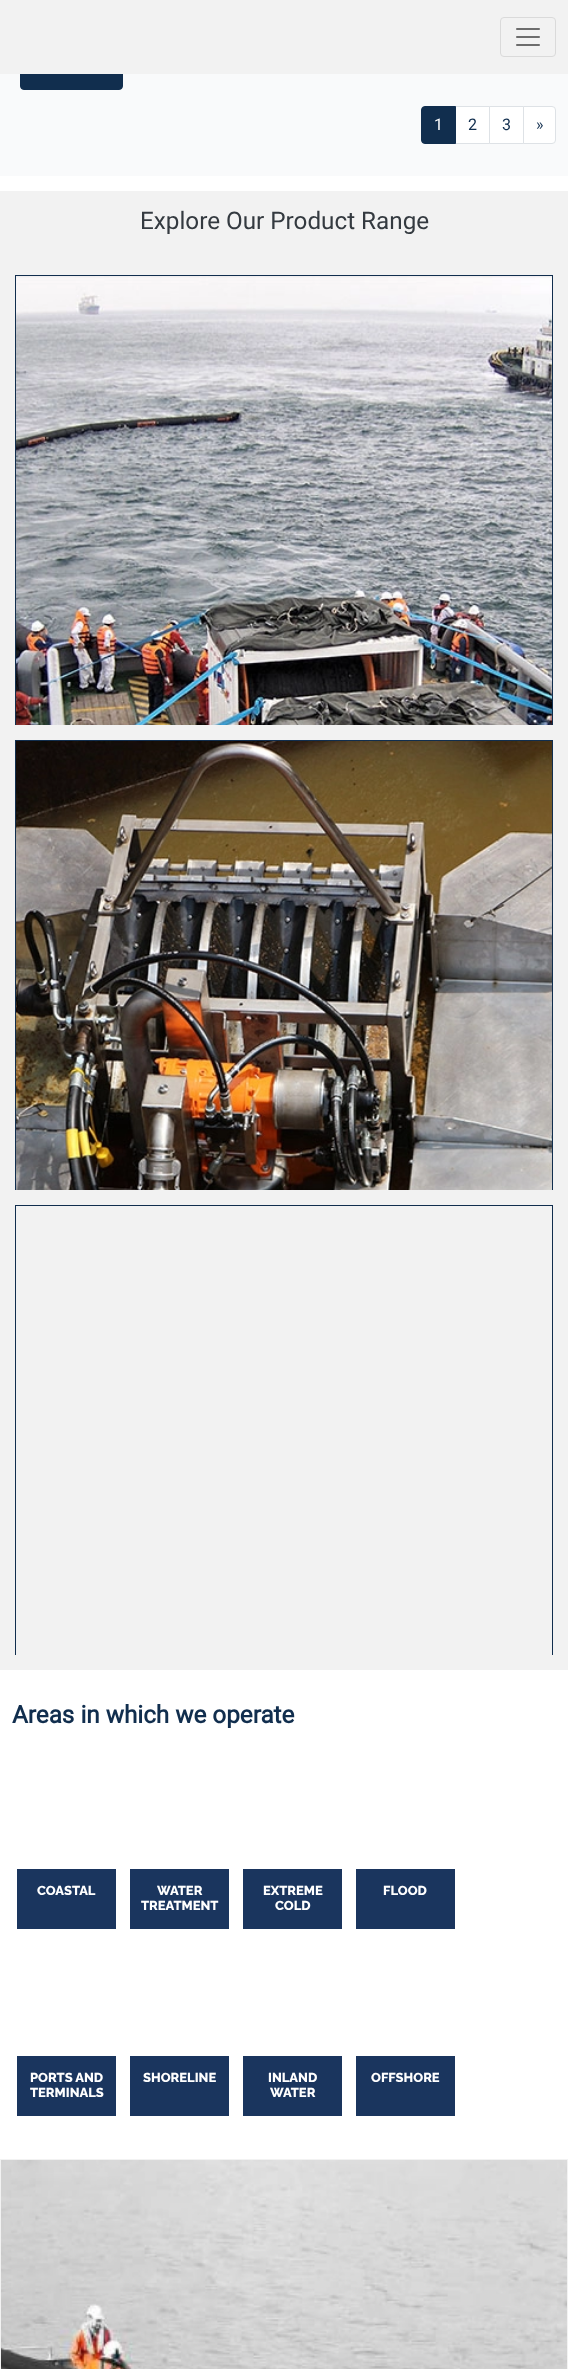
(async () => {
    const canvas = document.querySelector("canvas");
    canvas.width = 568;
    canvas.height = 2369;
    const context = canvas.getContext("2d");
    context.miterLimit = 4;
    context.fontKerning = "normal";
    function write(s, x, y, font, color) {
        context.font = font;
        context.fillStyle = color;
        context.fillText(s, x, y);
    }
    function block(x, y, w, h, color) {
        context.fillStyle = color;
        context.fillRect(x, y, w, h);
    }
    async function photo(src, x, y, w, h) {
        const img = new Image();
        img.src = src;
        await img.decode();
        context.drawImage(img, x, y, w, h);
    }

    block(0, 0, 568, 2369, "rgb(255, 255, 255)");
    block(0, 74, 568, 102, "rgb(249, 250, 251)");
    context.fillStyle = "rgb(17, 46, 78)";
    context.beginPath();
    context.roundRect(20.5, 52.5, 102, 37, 3.5);
    context.fill();
    context.strokeStyle = "rgb(17, 46, 78)";
    context.stroke();
    block(0, 0, 568, 74, "rgb(242, 242, 242)");
    context.beginPath();
    context.roundRect(500.5, 17.5, 55, 39, 3.5);
    context.strokeStyle = "rgb(218, 218, 218)";
    context.stroke();
    await photo("media/1.png", 516, 28, 24, 18);
    context.fillStyle = "rgb(255, 255, 255)";
    context.beginPath();
    context.rect(455.5, 106.5, 34, 37);
    context.fill();
    context.strokeStyle = "rgb(222, 226, 230)";
    context.stroke();
    context.fillStyle = "rgb(17, 46, 78)";
    context.beginPath();
    context.roundRect(421.5, 106.5, 34, 37, [3.5, 0, 0, 3.5]);
    context.fill();
    context.strokeStyle = "rgb(17, 46, 78)";
    context.stroke();
    write("1", 434, 130, "16px Roboto", "rgb(255, 255, 255)");
    write("2", 468, 130, "16px Roboto", "rgb(17, 46, 78)");
    context.fillStyle = "rgb(255, 255, 255)";
    context.beginPath();
    context.rect(489.5, 106.5, 34, 37);
    context.fill();
    context.strokeStyle = "rgb(222, 226, 230)";
    context.stroke();
    write("3", 502, 130, "16px Roboto", "rgb(17, 46, 78)");
    context.fillStyle = "rgb(255, 255, 255)";
    context.beginPath();
    context.roundRect(523.5, 106.5, 32, 37, [0, 3.5, 3.5, 0]);
    context.fill();
    context.stroke();
    write("»", 536, 130, "16px Roboto", "rgb(17, 46, 78)");
    block(0, 191, 568, 1479, "rgb(242, 242, 242)");
    write("Explore Our Product Range", 140, 229, "24.25px Roboto", "rgb(52, 58, 64)");
    context.save();
    context.beginPath();
    context.rect(0, 275, 568, 450);
    context.clip();
    context.strokeStyle = "rgb(17, 46, 78)";
    context.strokeRect(15.5, 275.5, 537, 711);
    context.restore();
    await photo("media/2.png", 16, 276, 536, 449);
    context.save();
    context.beginPath();
    context.rect(0, 740, 568, 450);
    context.clip();
    context.strokeStyle = "rgb(17, 46, 78)";
    context.strokeRect(15.5, 740.5, 537, 711);
    context.restore();
    await photo("media/3.png", 16, 741, 536, 449);
    context.save();
    context.beginPath();
    context.rect(0, 1205, 568, 450);
    context.clip();
    context.strokeStyle = "rgb(17, 46, 78)";
    context.strokeRect(15.5, 1205.5, 537, 711);
    context.restore();
    write("Areas in which we operate", 12, 1723, "bold 24.25px Roboto", "rgb(17, 46, 78)");
    block(17, 1869, 99, 60, "rgb(26, 53, 94)");
    write("COASTAL", 37, 1895, "800 13px Raleway", "rgb(255, 255, 255)");
    block(130, 1869, 99, 60, "rgb(26, 53, 94)");
    write("WATER", 157, 1895, "800 13px Raleway", "rgb(255, 255, 255)");
    write("TREATMENT", 141, 1910, "800 13px Raleway", "rgb(255, 255, 255)");
    block(243, 1869, 99, 60, "rgb(26, 53, 94)");
    write("EXTREME", 263, 1895, "800 13px Raleway", "rgb(255, 255, 255)");
    write("COLD", 275, 1910, "800 13px Raleway", "rgb(255, 255, 255)");
    block(356, 1869, 99, 60, "rgb(26, 53, 94)");
    write("FLOOD", 383, 1895, "800 13px Raleway", "rgb(255, 255, 255)");
    block(17, 2056, 99, 60, "rgb(26, 53, 94)");
    write("PORTS AND", 30, 2082, "800 13px Raleway", "rgb(255, 255, 255)");
    write("TERMINALS", 30, 2097, "800 13px Raleway", "rgb(255, 255, 255)");
    block(130, 2056, 99, 60, "rgb(26, 53, 94)");
    write("SHORELINE", 143, 2082, "800 13px Raleway", "rgb(255, 255, 255)");
    block(243, 2056, 99, 60, "rgb(26, 53, 94)");
    write("INLAND", 268, 2082, "800 13px Raleway", "rgb(255, 255, 255)");
    write("WATER", 270, 2097, "800 13px Raleway", "rgb(255, 255, 255)");
    block(356, 2056, 99, 60, "rgb(26, 53, 94)");
    write("OFFSHORE", 371, 2082, "800 13px Raleway", "rgb(255, 255, 255)");
    await photo("media/4.png", 1, 2160, 566, 209);
    context.strokeStyle = "rgb(242, 242, 242)";
    context.strokeRect(0.5, 2159.5, 567, 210);
})();
